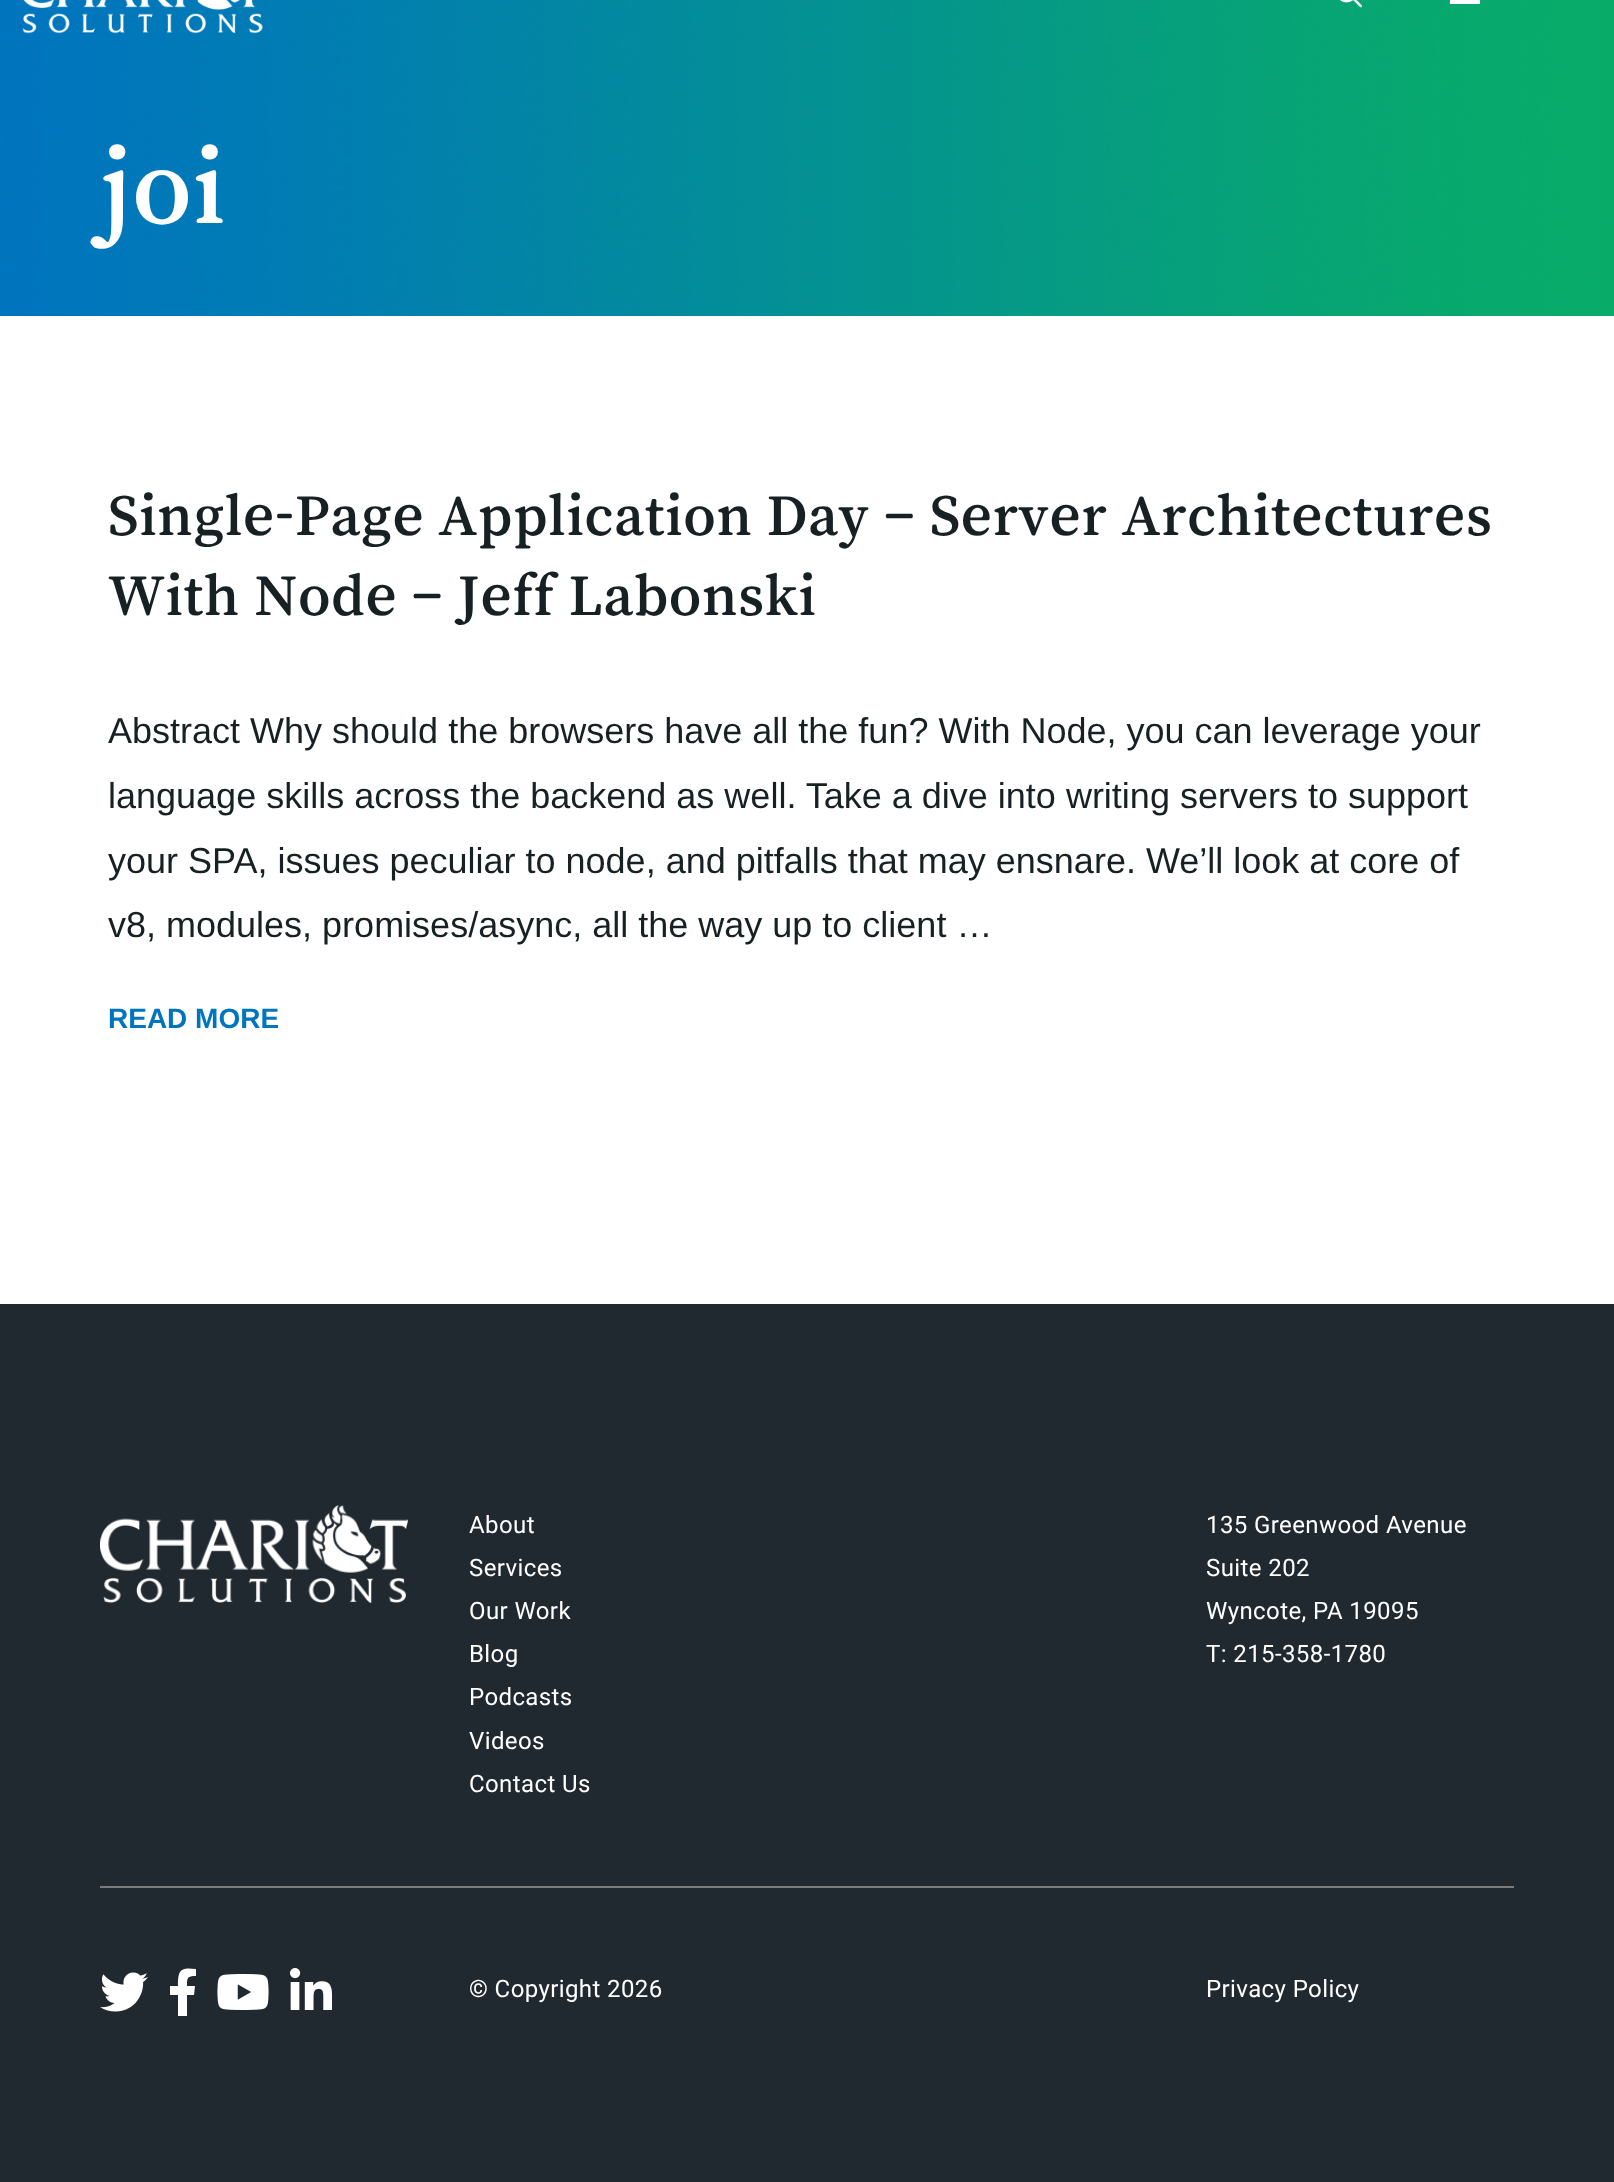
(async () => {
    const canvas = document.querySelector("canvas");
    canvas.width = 1614;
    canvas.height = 2182;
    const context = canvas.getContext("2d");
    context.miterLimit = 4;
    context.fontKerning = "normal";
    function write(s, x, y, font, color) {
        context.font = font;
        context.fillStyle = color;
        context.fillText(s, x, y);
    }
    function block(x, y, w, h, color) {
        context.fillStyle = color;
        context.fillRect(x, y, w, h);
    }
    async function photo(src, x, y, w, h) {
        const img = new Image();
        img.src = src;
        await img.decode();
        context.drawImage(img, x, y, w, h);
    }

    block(0, 0, 1614, 2182, "rgb(255, 255, 255)");
    await photo("media/3.png", 0, 0, 1614, 316);
    await photo("media/1.png", 22, 0, 241, 34);
    await photo("media/2.png", 1340, 0, 22, 8);
    block(1450, 0, 30, 4, "rgb(255, 255, 255)");
    context.letterSpacing = "0.4px";
    write("joi", 100, 223, "112px Song Myung", "rgb(255, 255, 255)");
    write("Single-Page Application Day – Server Architectures", 108, 535, "60.8px Song Myung", "rgb(23, 33, 35)");
    write("With Node – Jeff Labonski", 108, 615, "60.8px Song Myung", "rgb(23, 33, 35)");
    context.letterSpacing = "0px";
    write("Abstract Why should the browsers have all the fun? With Node, you can leverage your", 108, 743, "36px Liberation Sans", "rgb(23, 33, 35)");
    write("language skills across the backend as well. Take a dive into writing servers to support", 108, 808, "36px Liberation Sans", "rgb(23, 33, 35)");
    write("your SPA, issues peculiar to node, and pitfalls that may ensnare. We’ll look at core of", 108, 873, "36px Liberation Sans", "rgb(23, 33, 35)");
    write("v8, modules, promises/async, all the way up to client …", 108, 937, "36px Liberation Sans", "rgb(23, 33, 35)");
    write("READ MORE", 108, 1028, "bold 28px Liberation Sans", "rgb(0, 117, 191)");
    block(0, 1304, 1614, 878, "rgb(33, 41, 48)");
    await photo("media/4.png", 100, 1505, 308, 98);
    context.letterSpacing = "0.4px";
    write("About", 469, 1533, "24px Roboto", "rgb(255, 255, 255)");
    write("Services", 469, 1576, "24px Roboto", "rgb(255, 255, 255)");
    write("Our Work", 469, 1619, "24px Roboto", "rgb(255, 255, 255)");
    write("Blog", 469, 1662, "24px Roboto", "rgb(255, 255, 255)");
    write("Podcasts", 469, 1705, "24px Roboto", "rgb(255, 255, 255)");
    write("Videos", 469, 1749, "24px Roboto", "rgb(255, 255, 255)");
    write("Contact Us", 469, 1792, "24px Roboto", "rgb(255, 255, 255)");
    write("135 Greenwood Avenue", 1206, 1533, "24px Roboto", "rgb(255, 255, 255)");
    write("Suite 202", 1206, 1576, "24px Roboto", "rgb(255, 255, 255)");
    write("Wyncote, PA 19095", 1206, 1619, "24px Roboto", "rgb(255, 255, 255)");
    write("T: 215-358-1780", 1206, 1662, "24px Roboto", "rgb(255, 255, 255)");
    block(100, 1886, 1414, 2, "rgb(124, 124, 124)");
    await photo("media/5.png", 100, 1972, 48, 40);
    context.fillStyle = "rgb(255, 255, 255)";
    context.beginPath();
    context.moveTo(194, 1995);
    context.lineTo(187, 1995);
    context.lineTo(187, 2016);
    context.lineTo(178, 2016);
    context.lineTo(178, 1995);
    context.lineTo(170, 1995);
    context.lineTo(170, 1986);
    context.lineTo(178, 1986);
    context.bezierCurveTo(178, 1970, 180, 1967, 196, 1969);
    context.lineTo(196, 1976);
    context.bezierCurveTo(187, 1976, 187, 1978, 187, 1986);
    context.lineTo(195, 1986);
    context.closePath();
    context.fill();
    await photo("media/6.png", 217, 1974, 52, 36);
    await photo("media/7.png", 290, 1968, 42, 42);
    write("© Copyright 2026", 469, 1997, "24px Roboto", "rgb(255, 255, 255)");
    write("Privacy Policy", 1206, 1997, "24px Roboto", "rgb(255, 255, 255)");
})();
